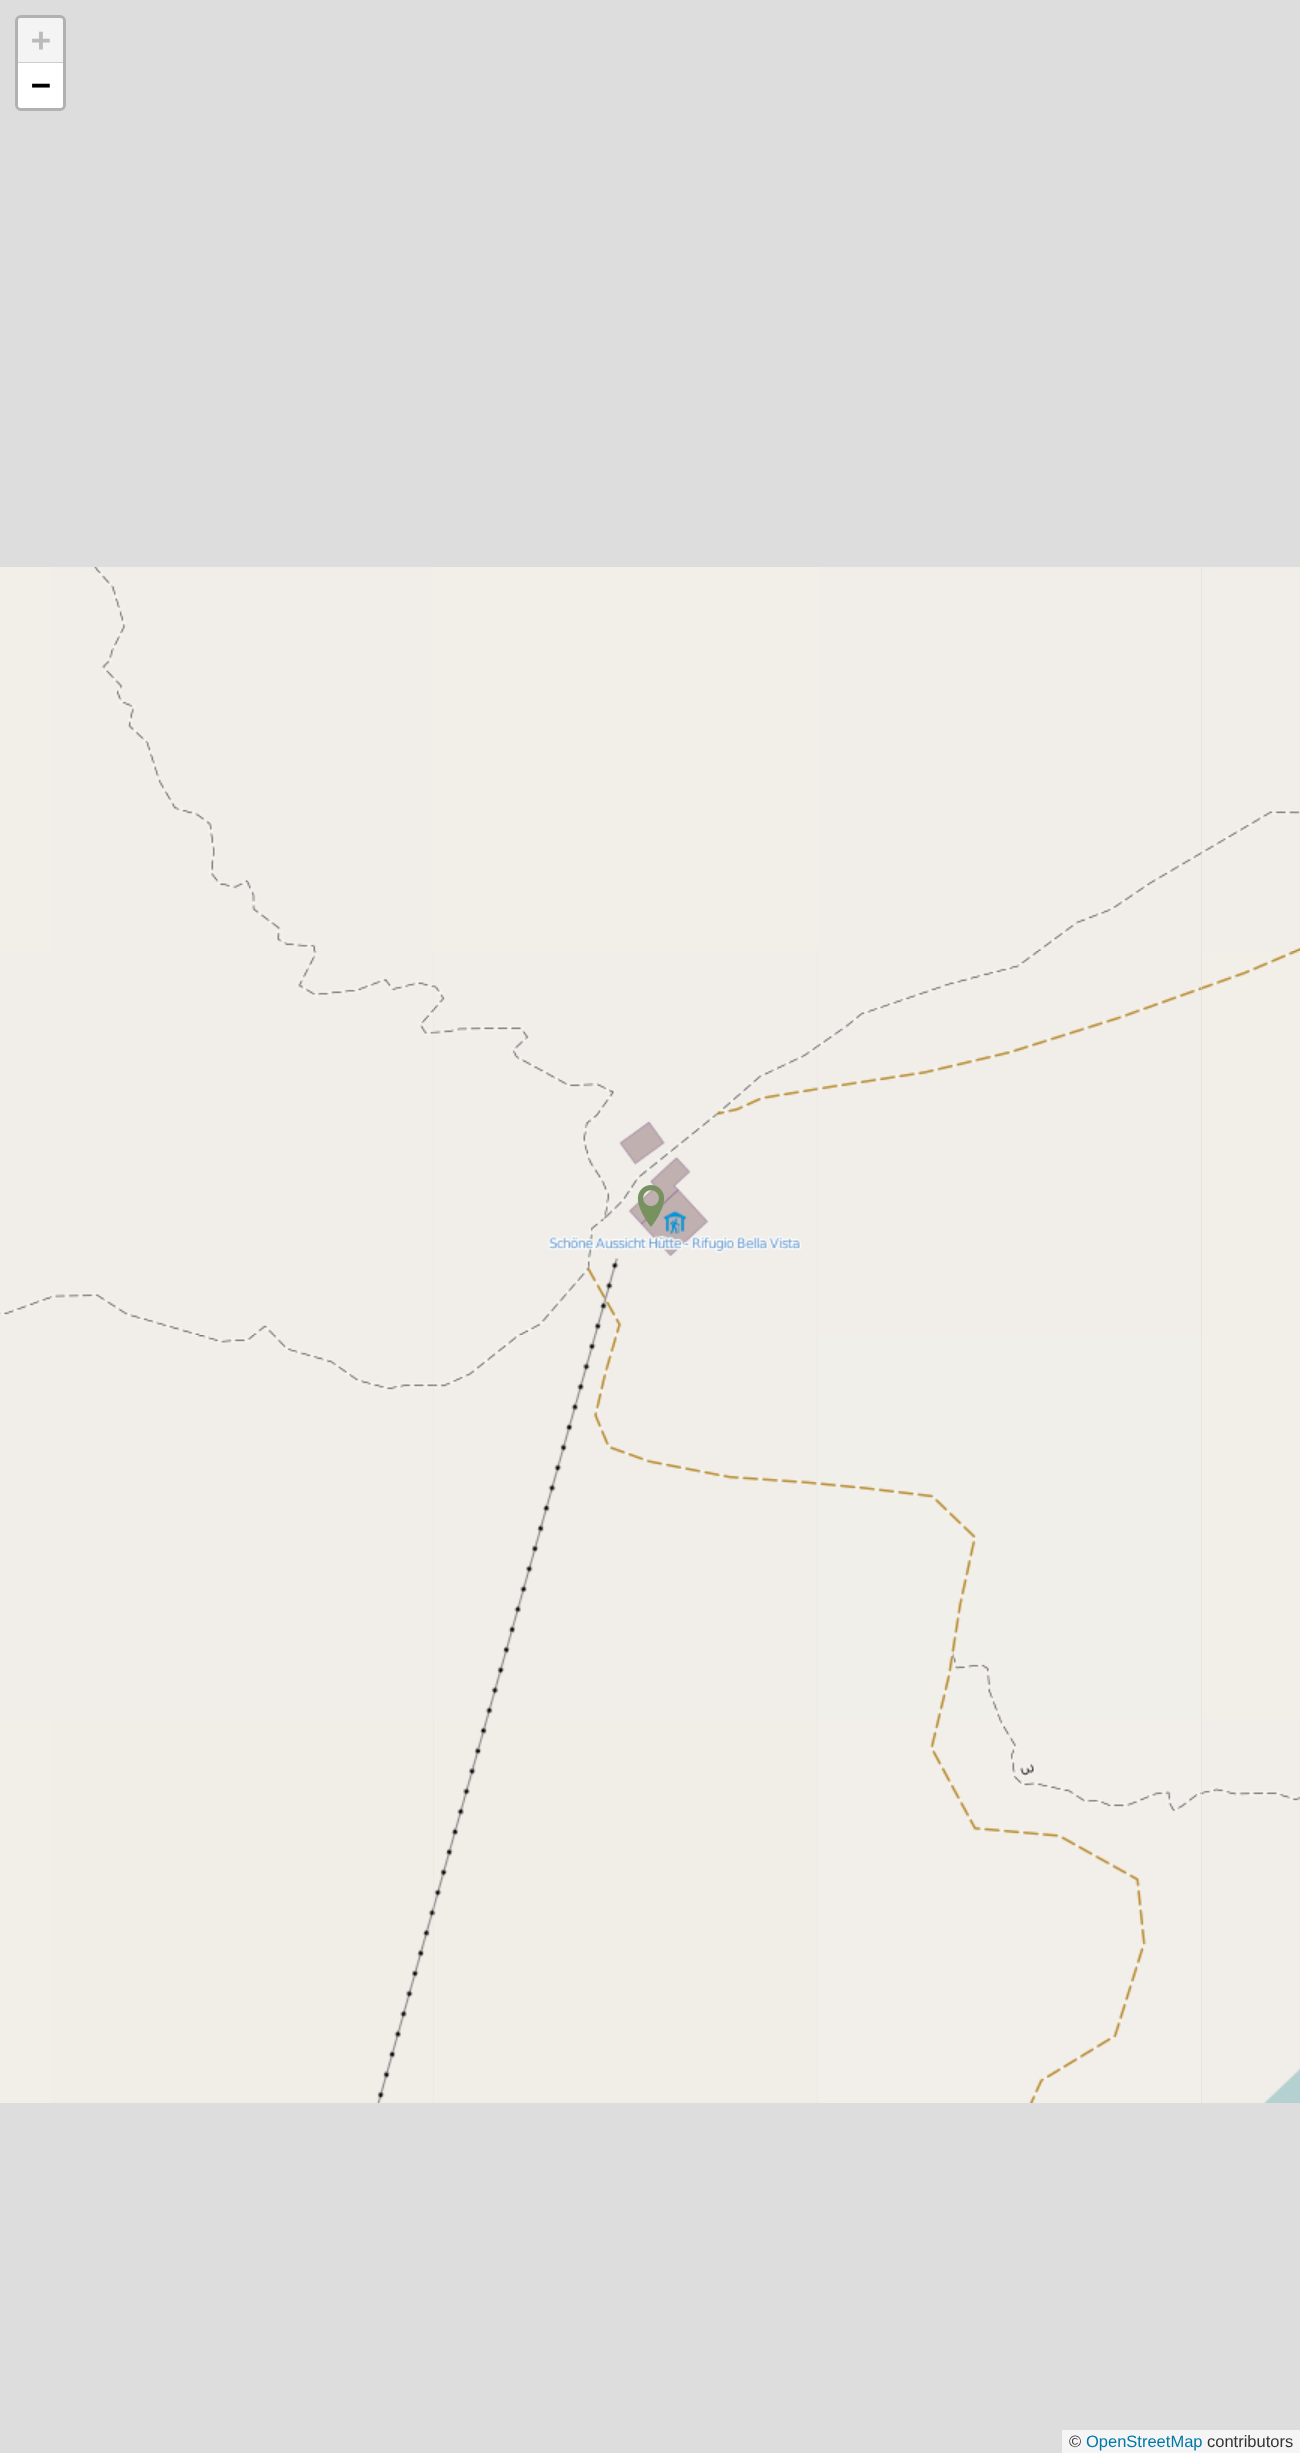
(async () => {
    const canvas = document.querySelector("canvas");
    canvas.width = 1300;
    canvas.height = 2453;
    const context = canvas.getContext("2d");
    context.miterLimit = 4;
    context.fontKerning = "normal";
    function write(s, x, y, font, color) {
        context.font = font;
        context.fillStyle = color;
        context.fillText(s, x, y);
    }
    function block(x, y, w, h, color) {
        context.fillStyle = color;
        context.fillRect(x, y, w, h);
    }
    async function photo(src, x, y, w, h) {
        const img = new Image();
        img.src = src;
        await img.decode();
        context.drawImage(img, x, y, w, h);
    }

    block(0, 0, 1300, 2453, "rgb(221, 221, 221)");
    context.beginPath();
    context.roundRect(16.5, 16.5, 48, 93, 4.5);
    context.strokeStyle = "rgb(177, 177, 177)";
    context.lineWidth = 3;
    context.stroke();
    context.fillStyle = "rgb(244, 244, 244)";
    context.beginPath();
    context.roundRect(18, 18, 45, 45, [3, 3, 0, 0]);
    context.fill();
    block(18, 62, 45, 1, "rgb(204, 204, 204)");
    write("+", 31, 51, "bold 33px DejaVu Sans Mono", "rgb(187, 187, 187)");
    context.fillStyle = "rgb(255, 255, 255)";
    context.beginPath();
    context.roundRect(18, 63, 45, 45, [0, 0, 3, 3]);
    context.fill();
    write("−", 31, 96, "bold 33px DejaVu Sans Mono", "rgb(0, 0, 0)");
    block(1062, 2430, 238, 23, "rgb(245, 245, 245)");
    write("©", 1069, 2447, "16.5px Liberation Sans", "rgb(51, 51, 51)");
    write("OpenStreetMap", 1086, 2447, "16.5px Liberation Sans", "rgb(0, 120, 168)");
    write("contributors", 1207, 2447, "16.5px Liberation Sans", "rgb(51, 51, 51)");
    block(0, 567, 50, 384, "rgb(242, 239, 233)");
    await photo("media/1.png", 50, 567, 383, 384);
    block(433, 567, 385, 384, "rgb(242, 239, 233)");
    await photo("media/2.png", 818, 567, 384, 384);
    await photo("media/3.png", 1202, 567, 98, 384);
    await photo("media/4.png", 0, 951, 50, 384);
    await photo("media/6.png", 433, 951, 385, 384);
    await photo("media/5.png", 50, 951, 384, 384);
    await photo("media/7.png", 817, 951, 385, 384);
    await photo("media/8.png", 1202, 951, 98, 384);
    block(0, 1335, 50, 384, "rgb(241, 238, 233)");
    await photo("media/10.png", 433, 1335, 385, 384);
    await photo("media/9.png", 50, 1335, 384, 384);
    await photo("media/11.png", 817, 1335, 385, 384);
    block(1202, 1335, 98, 384, "rgb(242, 239, 233)");
    block(0, 1719, 50, 384, "rgb(242, 239, 233)");
    await photo("media/13.png", 433, 1719, 385, 384);
    await photo("media/12.png", 50, 1719, 384, 384);
    await photo("media/14.png", 817, 1719, 385, 384);
    await photo("media/15.png", 1202, 1719, 98, 384);
    await photo("media/16.png", 637, 1185, 28, 42);
})();
